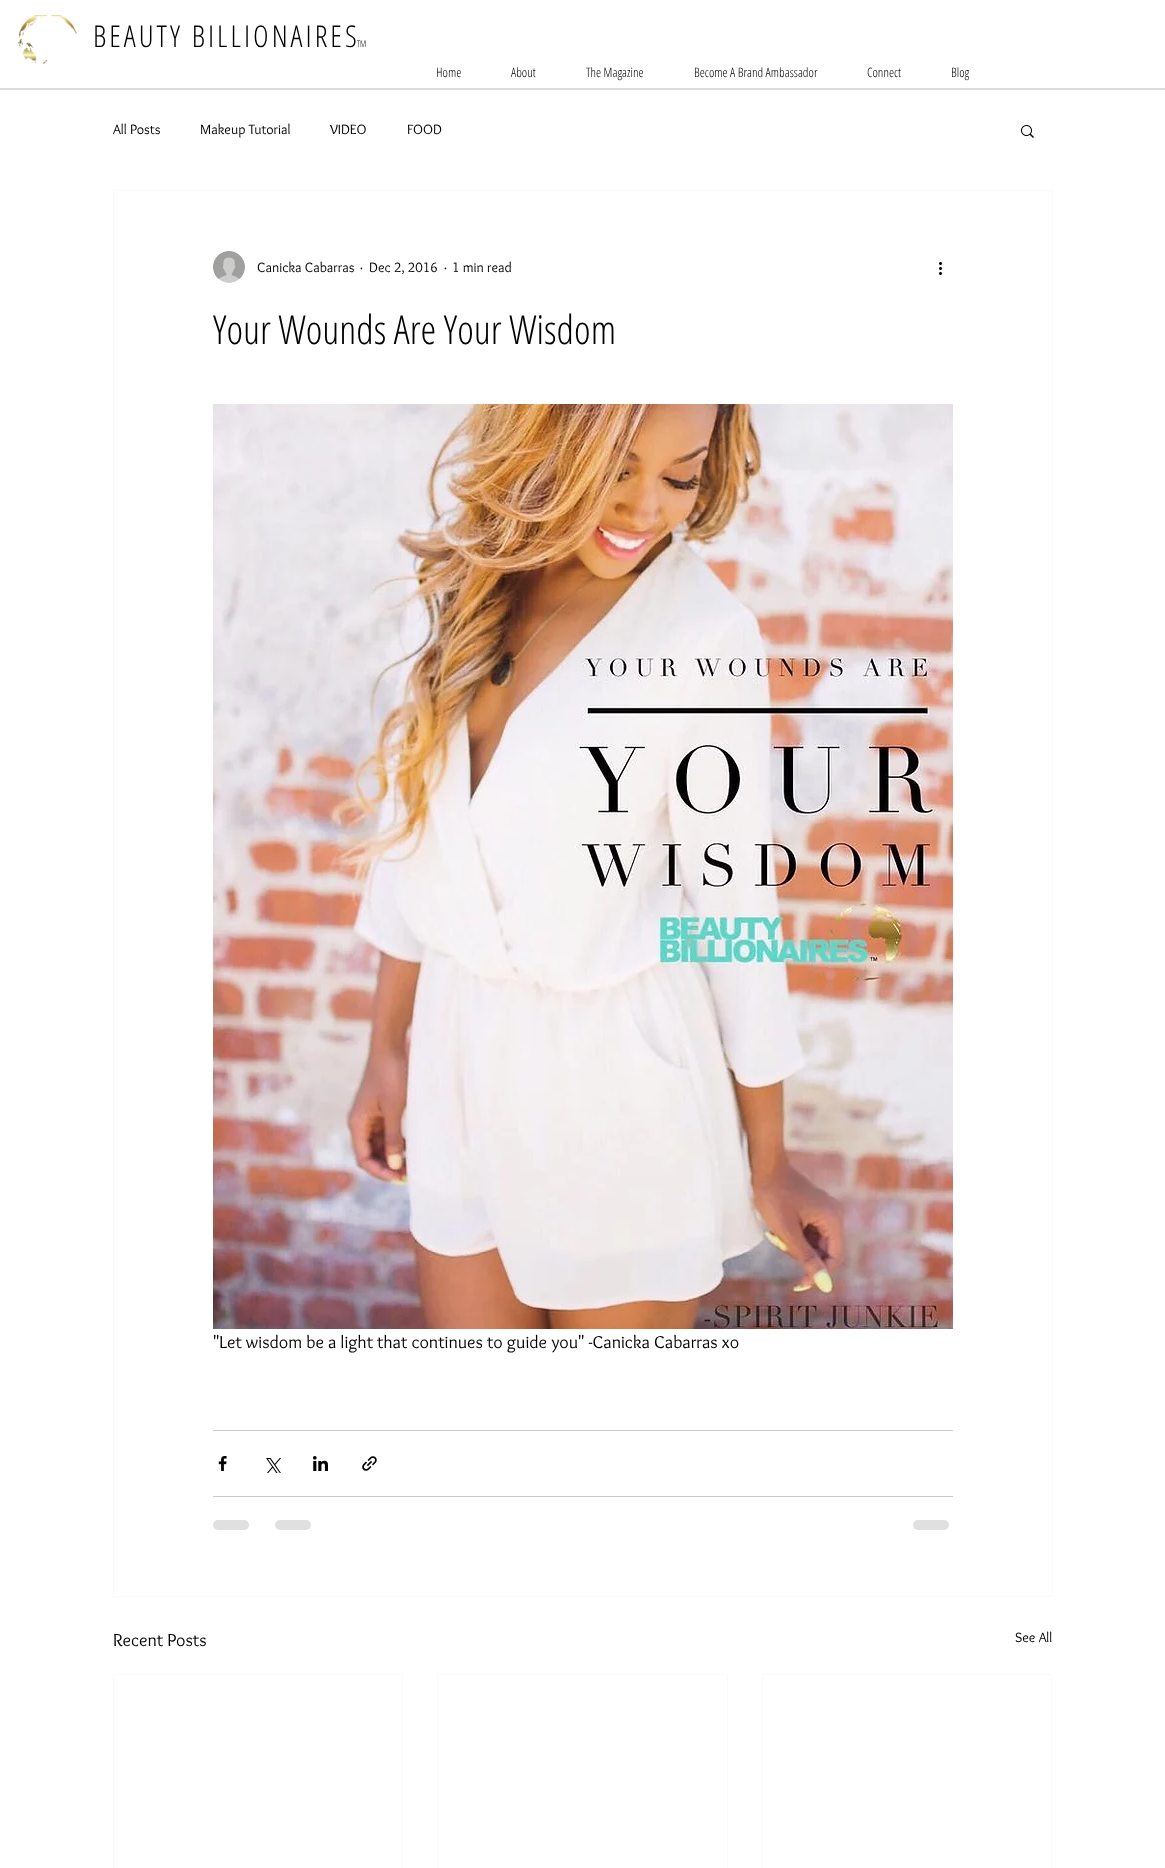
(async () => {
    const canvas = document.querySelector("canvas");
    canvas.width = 1165;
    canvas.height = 1868;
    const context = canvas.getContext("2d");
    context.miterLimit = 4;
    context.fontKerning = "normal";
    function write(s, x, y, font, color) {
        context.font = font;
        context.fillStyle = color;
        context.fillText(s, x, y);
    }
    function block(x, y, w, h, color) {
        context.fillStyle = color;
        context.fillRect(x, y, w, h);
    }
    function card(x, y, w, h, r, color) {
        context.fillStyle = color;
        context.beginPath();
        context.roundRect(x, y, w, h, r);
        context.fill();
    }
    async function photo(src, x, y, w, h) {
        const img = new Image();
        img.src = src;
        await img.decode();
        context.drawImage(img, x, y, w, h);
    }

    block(0, 0, 1165, 1868, "rgb(255, 255, 255)");
    await photo("media/1.png", 18, 15, 60, 49);
    context.letterSpacing = "3px";
    write("BEAUTY BILLIONAIRES", 93, 47, "300 30px Open Sans Condensed", "rgb(0, 0, 0)");
    context.letterSpacing = "0px";
    write("TM", 357, 47, "300 9px Open Sans Condensed", "rgb(0, 0, 0)");
    write("Home", 436, 77, "300 13px Open Sans Condensed", "rgb(0, 0, 0)");
    write("About", 511, 77, "300 13px Open Sans Condensed", "rgb(0, 0, 0)");
    write("The Magazine", 586, 77, "300 13px Open Sans Condensed", "rgb(0, 0, 0)");
    write("Become A Brand Ambassador", 694, 77, "300 13px Open Sans Condensed", "rgb(0, 0, 0)");
    write("Connect", 867, 77, "300 13px Open Sans Condensed", "rgb(0, 0, 0)");
    write("Blog", 951, 77, "300 13px Open Sans Condensed", "rgb(0, 0, 0)");
    block(0, 88, 1165, 2, "rgb(221, 220, 220)");
    write("All Posts", 113, 134, "14px Overlock", "rgb(0, 0, 0)");
    write("Makeup Tutorial", 200, 134, "14px Overlock", "rgb(0, 0, 0)");
    write("VIDEO", 330, 134, "14px Overlock", "rgb(0, 0, 0)");
    write("FOOD", 407, 134, "14px Overlock", "rgb(0, 0, 0)");
    await photo("media/2.png", 1021, 125, 13, 13);
    context.strokeStyle = "rgb(250, 250, 250)";
    context.strokeRect(113.5, 190.5, 939, 1406);
    await photo("media/3.png", 213, 251, 32, 32);
    write("Canicka Cabarras", 257, 272, "14px Overlock", "rgb(0, 0, 0)");
    write("·", 360, 272, "14px Overlock", "rgb(0, 0, 0)");
    write("Dec 2, 2016", 369, 272, "14px Overlock", "rgb(0, 0, 0)");
    write("·", 444, 272, "14px Overlock", "rgb(0, 0, 0)");
    write("1 min read", 452, 272, "14px Overlock", "rgb(0, 0, 0)");
    await photo("media/4.png", 939, 262, 3, 13);
    write("Your Wounds Are Your Wisdom", 213, 344, "300 40px Open Sans Condensed", "rgb(0, 0, 0)");
    await photo("media/5.png", 213, 404, 740, 925);
    write("\"Let wisdom be a light that continues to guide you\" -Canicka Cabarras xo", 213, 1348, "18px Overlock", "rgb(0, 0, 0)");
    block(213, 1430, 740, 1, "rgb(204, 204, 204)");
    await photo("media/6.png", 218, 1456, 9, 15);
    await photo("media/7.png", 266, 1458, 15, 15);
    await photo("media/8.png", 313, 1456, 15, 15);
    await photo("media/9.png", 362, 1456, 15, 15);
    block(213, 1496, 740, 1, "rgb(204, 204, 204)");
    card(213, 1520, 36, 10, 5, "rgb(224, 224, 224)");
    card(275, 1520, 36, 10, 5, "rgb(224, 224, 224)");
    card(913, 1520, 36, 10, 5, "rgb(224, 224, 224)");
    write("Recent Posts", 113, 1646, "18px Overlock", "rgb(0, 0, 0)");
    write("See All", 1015, 1642, "14px Overlock", "rgb(0, 0, 0)");
    context.strokeRect(113.5, 1674.5, 289, 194);
    context.strokeRect(437.5, 1674.5, 290, 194);
    context.strokeRect(762.5, 1674.5, 289, 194);
})();
